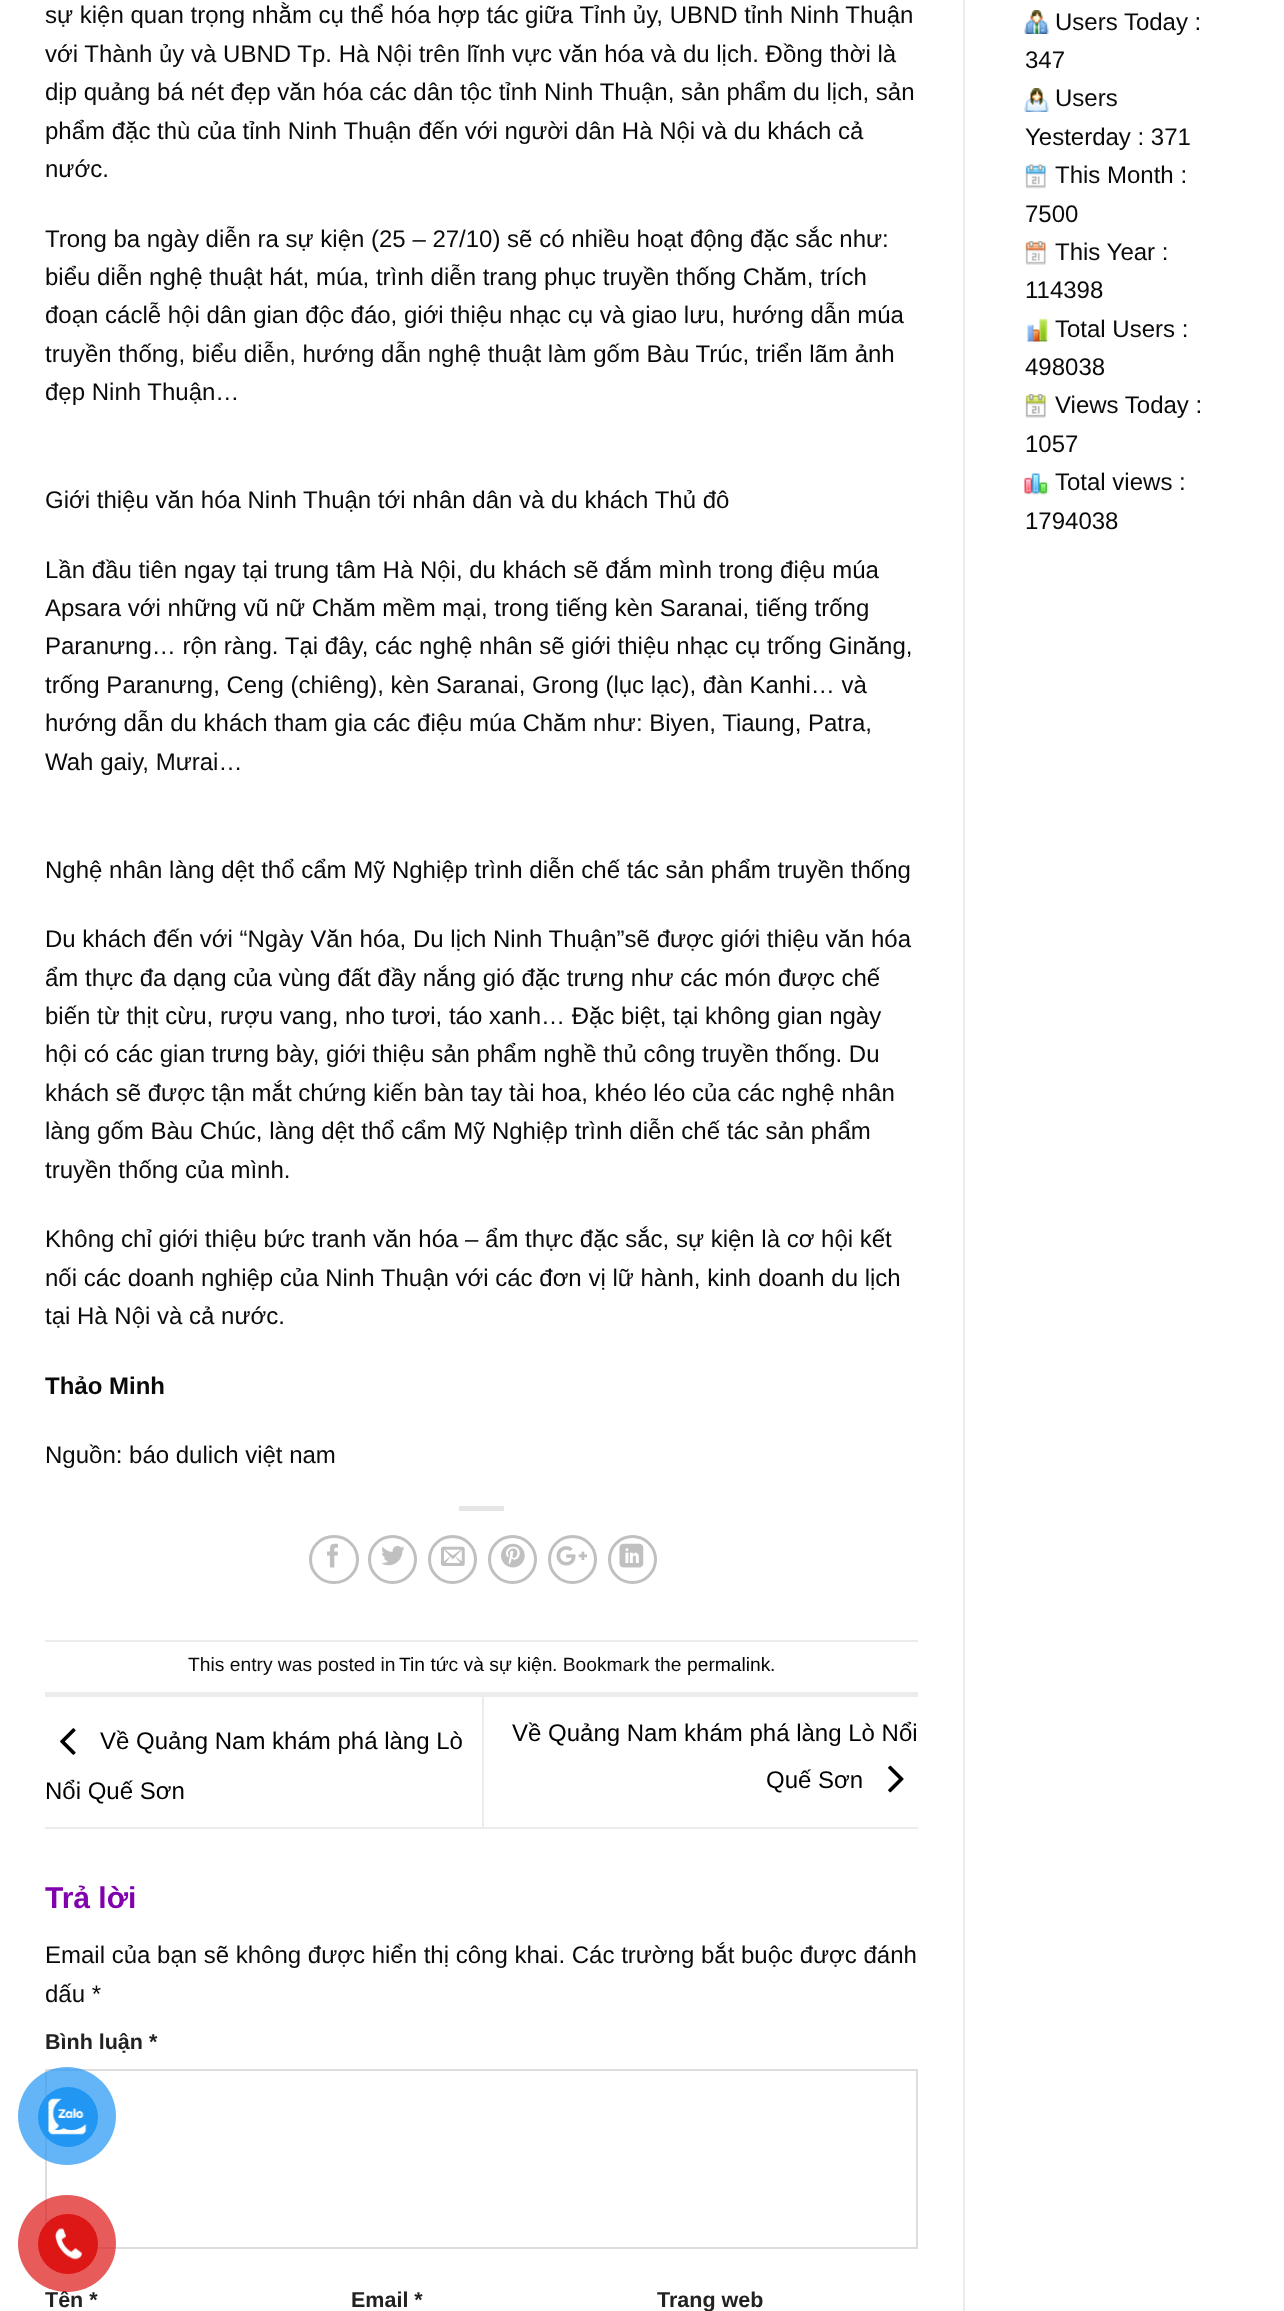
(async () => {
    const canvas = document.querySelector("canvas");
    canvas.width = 1284;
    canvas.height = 2311;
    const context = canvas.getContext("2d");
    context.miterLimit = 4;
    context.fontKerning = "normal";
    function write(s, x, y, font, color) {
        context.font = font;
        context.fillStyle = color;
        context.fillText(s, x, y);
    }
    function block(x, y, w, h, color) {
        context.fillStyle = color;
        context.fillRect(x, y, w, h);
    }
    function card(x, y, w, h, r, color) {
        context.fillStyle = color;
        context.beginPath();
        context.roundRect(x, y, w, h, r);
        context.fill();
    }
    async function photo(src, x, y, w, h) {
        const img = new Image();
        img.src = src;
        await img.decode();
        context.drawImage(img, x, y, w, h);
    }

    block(0, 0, 1284, 2311, "rgb(255, 255, 255)");
    write("sự kiện quan trọng nhằm cụ thể hóa hợp tác giữa Tỉnh ủy, UBND tỉnh Ninh Thuận", 45, 23, "24px Liberation Sans", "rgb(10, 10, 10)");
    write("với Thành ủy và UBND Tp. Hà Nội trên lĩnh vực văn hóa và du lịch. Đồng thời là", 45, 62, "24px Liberation Sans", "rgb(10, 10, 10)");
    write("dịp quảng bá nét đẹp văn hóa các dân tộc tỉnh Ninh Thuận, sản phẩm du lịch, sản", 45, 100, "24px Liberation Sans", "rgb(10, 10, 10)");
    write("phẩm đặc thù của tỉnh Ninh Thuận đến với người dân Hà Nội và du khách cả", 45, 139, "24px Liberation Sans", "rgb(10, 10, 10)");
    write("nước.", 45, 177, "24px Liberation Sans", "rgb(10, 10, 10)");
    write("Trong ba ngày diễn ra sự kiện (25 – 27/10) sẽ có nhiều hoạt động đặc sắc như:", 45, 247, "24px Liberation Sans", "rgb(10, 10, 10)");
    write("biểu diễn nghệ thuật hát, múa, trình diễn trang phục truyền thống Chăm, trích", 45, 285, "24px Liberation Sans", "rgb(10, 10, 10)");
    write("đoạn cáclễ hội dân gian độc đáo, giới thiệu nhạc cụ và giao lưu, hướng dẫn múa", 45, 323, "24px Liberation Sans", "rgb(10, 10, 10)");
    write("truyền thống, biểu diễn, hướng dẫn nghệ thuật làm gốm Bàu Trúc, triển lãm ảnh", 45, 362, "24px Liberation Sans", "rgb(10, 10, 10)");
    write("đẹp Ninh Thuận…", 45, 400, "24px Liberation Sans", "rgb(10, 10, 10)");
    write("Giới thiệu văn hóa Ninh Thuận tới nhân dân và du khách Thủ đô", 45, 508, "24px Liberation Sans", "rgb(10, 10, 10)");
    write("Lần đầu tiên ngay tại trung tâm Hà Nội, du khách sẽ đắm mình trong điệu múa", 45, 578, "24px Liberation Sans", "rgb(10, 10, 10)");
    write("Apsara với những vũ nữ Chăm mềm mại, trong tiếng kèn Saranai, tiếng trống", 45, 616, "24px Liberation Sans", "rgb(10, 10, 10)");
    write("Paranưng… rộn ràng. Tại đây, các nghệ nhân sẽ giới thiệu nhạc cụ trống Ginăng,", 45, 654, "24px Liberation Sans", "rgb(10, 10, 10)");
    write("trống Paranưng, Ceng (chiêng), kèn Saranai, Grong (lục lạc), đàn Kanhi… và", 45, 693, "24px Liberation Sans", "rgb(10, 10, 10)");
    write("hướng dẫn du khách tham gia các điệu múa Chăm như: Biyen, Tiaung, Patra,", 45, 731, "24px Liberation Sans", "rgb(10, 10, 10)");
    write("Wah gaiy, Mưrai…", 45, 770, "24px Liberation Sans", "rgb(10, 10, 10)");
    write("Nghệ nhân làng dệt thổ cẩm Mỹ Nghiệp trình diễn chế tác sản phẩm truyền thống", 45, 878, "24px Liberation Sans", "rgb(10, 10, 10)");
    write("Du khách đến với “Ngày Văn hóa, Du lịch Ninh Thuận”sẽ được giới thiệu văn hóa", 45, 947, "24px Liberation Sans", "rgb(10, 10, 10)");
    write("ẩm thực đa dạng của vùng đất đầy nắng gió đặc trưng như các món được chế", 45, 986, "24px Liberation Sans", "rgb(10, 10, 10)");
    write("biến từ thịt cừu, rượu vang, nho tươi, táo xanh… Đặc biệt, tại không gian ngày", 45, 1024, "24px Liberation Sans", "rgb(10, 10, 10)");
    write("hội có các gian trưng bày, giới thiệu sản phẩm nghề thủ công truyền thống. Du", 45, 1062, "24px Liberation Sans", "rgb(10, 10, 10)");
    write("khách sẽ được tận mắt chứng kiến bàn tay tài hoa, khéo léo của các nghệ nhân", 45, 1101, "24px Liberation Sans", "rgb(10, 10, 10)");
    write("làng gốm Bàu Chúc, làng dệt thổ cẩm Mỹ Nghiệp trình diễn chế tác sản phẩm", 45, 1139, "24px Liberation Sans", "rgb(10, 10, 10)");
    write("truyền thống của mình.", 45, 1178, "24px Liberation Sans", "rgb(10, 10, 10)");
    write("Không chỉ giới thiệu bức tranh văn hóa – ẩm thực đặc sắc, sự kiện là cơ hội kết", 45, 1247, "24px Liberation Sans", "rgb(10, 10, 10)");
    write("nối các doanh nghiệp của Ninh Thuận với các đơn vị lữ hành, kinh doanh du lịch", 45, 1286, "24px Liberation Sans", "rgb(10, 10, 10)");
    write("tại Hà Nội và cả nước.", 45, 1324, "24px Liberation Sans", "rgb(10, 10, 10)");
    write("Thảo Minh", 45, 1394, "bold 24px Liberation Sans", "rgb(10, 10, 10)");
    write("Nguồn: báo dulich việt nam", 45, 1463, "24px Liberation Sans", "rgb(10, 10, 10)");
    block(459, 1506, 45, 5, "rgb(230, 230, 230)");
    context.beginPath();
    context.roundRect(310.5, 1536.5, 47, 46, 23);
    context.strokeStyle = "rgb(192, 192, 192)";
    context.lineWidth = 3;
    context.stroke();
    await photo("media/1.png", 327, 1543, 11, 25);
    context.beginPath();
    context.arc(392.5, 1559.5, 23, 0, Math.PI * 2);
    context.stroke();
    await photo("media/2.png", 381, 1546, 24, 20);
    context.beginPath();
    context.arc(452.5, 1559.5, 23, 0, Math.PI * 2);
    context.stroke();
    await photo("media/3.png", 441, 1546, 24, 20);
    context.beginPath();
    context.arc(512.5, 1559.5, 23, 0, Math.PI * 2);
    context.stroke();
    await photo("media/4.png", 501, 1543, 24, 25);
    context.beginPath();
    context.arc(572.5, 1559.5, 23, 0, Math.PI * 2);
    context.stroke();
    await photo("media/5.png", 556, 1546, 31, 20);
    context.beginPath();
    context.arc(632.5, 1559.5, 23, 0, Math.PI * 2);
    context.stroke();
    await photo("media/6.png", 619, 1543, 25, 25);
    block(45, 1640, 873, 2, "rgb(236, 236, 236)");
    block(45, 1692, 873, 5, "rgb(236, 236, 236)");
    write("This entry was posted in", 188, 1671, "19.25px Liberation Sans", "rgb(10, 10, 10)");
    write("Tin tức và sự kiện", 399, 1671, "19.25px Liberation Sans", "rgb(0, 0, 0)");
    write(". Bookmark the", 552, 1671, "19.25px Liberation Sans", "rgb(10, 10, 10)");
    write("permalink", 687, 1671, "19.25px Liberation Sans", "rgb(0, 0, 0)");
    write(".", 770, 1671, "19.25px Liberation Sans", "rgb(10, 10, 10)");
    block(45, 1827, 873, 2, "rgb(236, 236, 236)");
    await photo("media/7.png", 60, 1728, 16, 27);
    write("Về Quảng Nam khám phá làng Lò", 100, 1749, "24px Liberation Sans", "rgb(0, 0, 0)");
    write("Nổi Quế Sơn", 45, 1799, "24px Liberation Sans", "rgb(0, 0, 0)");
    block(482, 1697, 2, 130, "rgb(236, 236, 236)");
    write("Về Quảng Nam khám phá làng Lò Nổi", 512, 1741, "24px Liberation Sans", "rgb(0, 0, 0)");
    write("Quế Sơn", 766, 1788, "24px Liberation Sans", "rgb(0, 0, 0)");
    await photo("media/8.png", 888, 1765, 16, 28);
    write("Trả lời", 45, 1908, "bold 30px Liberation Sans", "rgb(127, 2, 173)");
    write("Email của bạn sẽ không được hiển thị công khai. Các trường bắt buộc được đánh", 45, 1963, "24px Liberation Sans", "rgb(10, 10, 10)");
    write("dấu *", 45, 2002, "24px Liberation Sans", "rgb(10, 10, 10)");
    write("Bình luận *", 45, 2049, "bold 21.5px Liberation Sans", "rgb(34, 34, 34)");
    context.strokeStyle = "rgb(221, 221, 221)";
    context.lineWidth = 2;
    context.strokeRect(46, 2070, 871, 178);
    write("Tên *", 45, 2307, "bold 21.5px Liberation Sans", "rgb(34, 34, 34)");
    write("Email *", 351, 2307, "bold 21.5px Liberation Sans", "rgb(34, 34, 34)");
    write("Trang web", 657, 2307, "bold 21.5px Liberation Sans", "rgb(34, 34, 34)");
    block(963, 0, 2, 2311, "rgb(236, 236, 236)");
    await photo("media/9.png", 1024, 10, 25, 24);
    write("Users Today :", 1055, 30, "24px Liberation Sans", "rgb(10, 10, 10)");
    write("347", 1025, 68, "24px Liberation Sans", "rgb(10, 10, 10)");
    await photo("media/10.png", 1024, 88, 25, 24);
    write("Users", 1055, 106, "24px Liberation Sans", "rgb(10, 10, 10)");
    write("Yesterday : 371", 1025, 145, "24px Liberation Sans", "rgb(10, 10, 10)");
    await photo("media/11.png", 1025, 164, 21, 25);
    write("This Month :", 1055, 183, "24px Liberation Sans", "rgb(10, 10, 10)");
    write("7500", 1025, 222, "24px Liberation Sans", "rgb(10, 10, 10)");
    await photo("media/12.png", 1025, 241, 21, 24);
    write("This Year :", 1055, 260, "24px Liberation Sans", "rgb(10, 10, 10)");
    write("114398", 1025, 298, "24px Liberation Sans", "rgb(10, 10, 10)");
    await photo("media/13.png", 1027, 318, 21, 24);
    write("Total Users :", 1055, 337, "24px Liberation Sans", "rgb(10, 10, 10)");
    write("498038", 1025, 375, "24px Liberation Sans", "rgb(10, 10, 10)");
    await photo("media/14.png", 1025, 394, 21, 24);
    write("Views Today :", 1055, 413, "24px Liberation Sans", "rgb(10, 10, 10)");
    write("1057", 1025, 452, "24px Liberation Sans", "rgb(10, 10, 10)");
    await photo("media/15.png", 1024, 473, 24, 22);
    write("Total views :", 1055, 490, "24px Liberation Sans", "rgb(10, 10, 10)");
    write("1794038", 1025, 529, "24px Liberation Sans", "rgb(10, 10, 10)");
    context.fillStyle = "rgba(33, 150, 243, 0.7)";
    context.beginPath();
    context.arc(67, 2116, 49, 0, Math.PI * 2);
    context.fill();
    context.fillStyle = "rgb(33, 150, 243)";
    context.beginPath();
    context.arc(68, 2117, 30, 0, Math.PI * 2);
    context.fill();
    await photo("media/16.png", 48, 2098, 39, 37);
    card(18, 2195, 98, 97, 48.5, "rgba(221, 22, 22, 0.7)");
    context.fillStyle = "rgb(221, 22, 22)";
    context.beginPath();
    context.arc(68, 2244, 30, 0, Math.PI * 2);
    context.fill();
    await photo("media/17.png", 55, 2228, 27, 32);
})();
